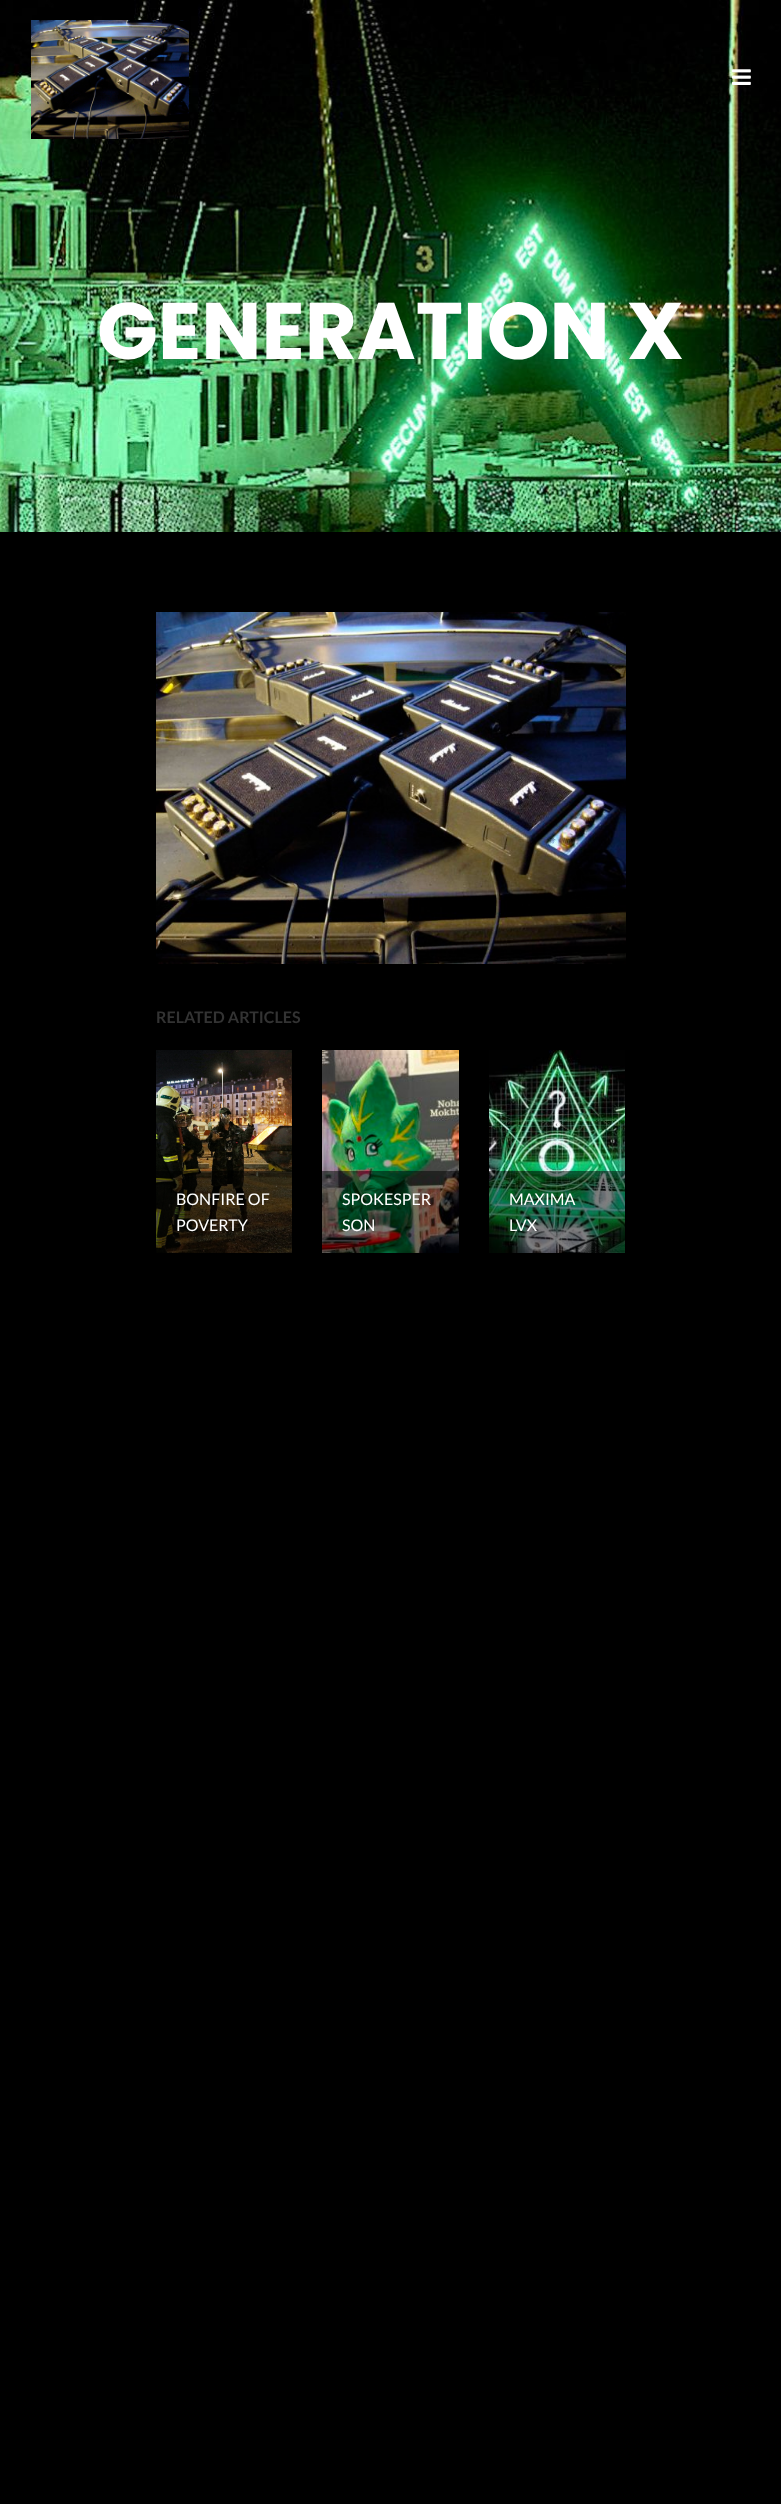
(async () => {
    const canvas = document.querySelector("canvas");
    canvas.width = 781;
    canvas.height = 2504;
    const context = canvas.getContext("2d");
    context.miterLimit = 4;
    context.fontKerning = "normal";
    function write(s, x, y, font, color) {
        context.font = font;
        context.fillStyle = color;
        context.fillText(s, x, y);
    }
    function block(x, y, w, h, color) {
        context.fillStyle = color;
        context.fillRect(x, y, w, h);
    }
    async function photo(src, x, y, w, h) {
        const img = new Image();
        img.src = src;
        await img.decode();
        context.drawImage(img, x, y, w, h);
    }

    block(0, 0, 781, 2504, "rgb(0, 0, 0)");
    await photo("media/1.png", 0, 0, 781, 532);
    await photo("media/2.png", 31, 20, 158, 119);
    await photo("media/3.png", 732, 69, 19, 16);
    write("GENERATION X", 97, 359, "bold 80px Poppins", "rgb(255, 255, 255)");
    await photo("media/4.png", 156, 612, 470, 352);
    write("RELATED ARTICLES", 156, 1023, "bold 16px Lato", "rgb(51, 51, 51)");
    await photo("media/5.png", 156, 1050, 136, 203);
    block(156, 1171, 136, 82, "rgba(0, 0, 0, 0.5)");
    write("BONFIRE OF", 176, 1205, "16px Lato", "rgb(255, 255, 255)");
    write("POVERTY", 176, 1231, "16px Lato", "rgb(255, 255, 255)");
    await photo("media/6.png", 322, 1050, 137, 203);
    block(322, 1171, 137, 82, "rgba(0, 0, 0, 0.5)");
    write("SPOKESPER", 342, 1205, "16px Lato", "rgb(255, 255, 255)");
    write("SON", 342, 1231, "16px Lato", "rgb(255, 255, 255)");
    await photo("media/7.png", 489, 1050, 136, 203);
    block(489, 1171, 136, 82, "rgba(0, 0, 0, 0.5)");
    write("MAXIMA", 509, 1205, "16px Lato", "rgb(255, 255, 255)");
    write("LVX", 509, 1231, "16px Lato", "rgb(255, 255, 255)");
})();
